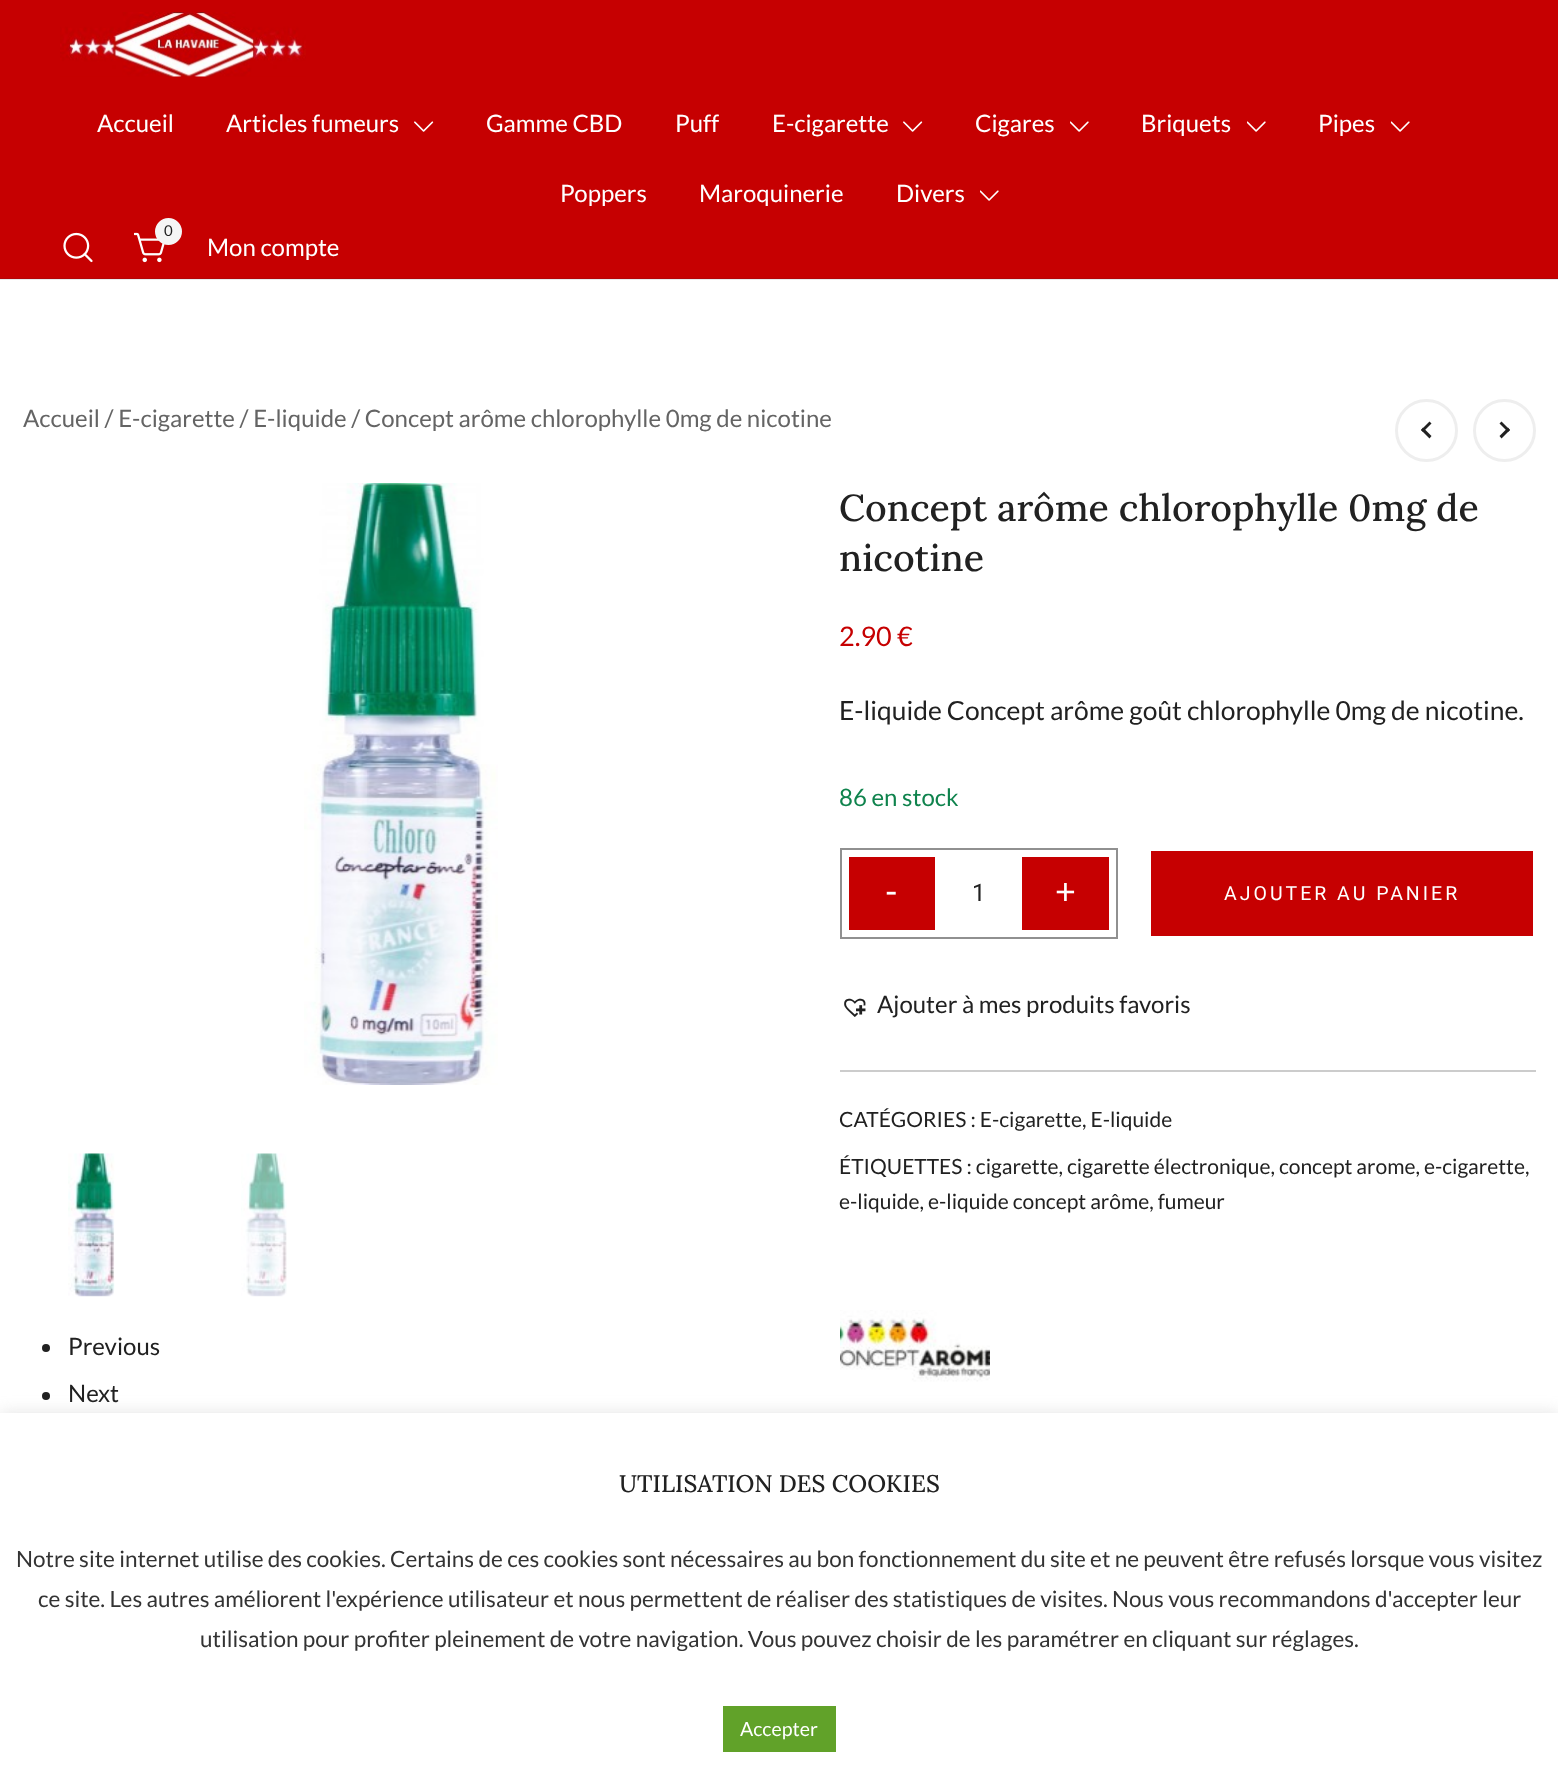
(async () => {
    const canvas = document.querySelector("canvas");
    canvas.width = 1558;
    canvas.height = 1777;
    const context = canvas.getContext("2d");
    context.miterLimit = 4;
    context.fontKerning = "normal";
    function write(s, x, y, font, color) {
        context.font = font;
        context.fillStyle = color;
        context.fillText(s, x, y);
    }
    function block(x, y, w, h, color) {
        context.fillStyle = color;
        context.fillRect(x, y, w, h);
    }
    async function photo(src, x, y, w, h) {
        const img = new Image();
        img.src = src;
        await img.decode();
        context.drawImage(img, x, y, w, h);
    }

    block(0, 0, 1558, 1777, "rgb(255, 255, 255)");
    block(0, 279, 1558, 1, "rgb(230, 234, 236)");
    block(0, 0, 1558, 278, "rgb(198, 0, 1)");
    block(0, 278, 1558, 1, "rgb(178, 5, 7)");
    await photo("media/1.png", 60, 12, 246, 65);
    write("Accueil", 97, 132, "24px Lato", "rgb(255, 255, 255)");
    write("Articles fumeurs", 226, 132, "24px Lato", "rgb(255, 255, 255)");
    await photo("media/2.png", 414, 121, 20, 11);
    write("Gamme CBD", 486, 132, "24px Lato", "rgb(255, 255, 255)");
    write("Puff", 675, 132, "24px Lato", "rgb(255, 255, 255)");
    write("E-cigarette", 772, 132, "24px Lato", "rgb(255, 255, 255)");
    await photo("media/2.png", 903, 121, 20, 11);
    write("Cigares", 975, 132, "24px Lato", "rgb(255, 255, 255)");
    await photo("media/3.png", 1070, 121, 19, 11);
    write("Briquets", 1141, 132, "24px Lato", "rgb(255, 255, 255)");
    await photo("media/3.png", 1247, 121, 19, 11);
    write("Pipes", 1318, 132, "24px Lato", "rgb(255, 255, 255)");
    await photo("media/3.png", 1391, 121, 19, 11);
    write("Poppers", 560, 202, "24px Lato", "rgb(255, 255, 255)");
    write("Maroquinerie", 699, 202, "24px Lato", "rgb(255, 255, 255)");
    write("Divers", 896, 202, "24px Lato", "rgb(255, 255, 255)");
    await photo("media/3.png", 980, 190, 19, 11);
    await photo("media/4.png", 63, 232, 30, 31);
    await photo("media/5.png", 134, 232, 31, 31);
    context.fillStyle = "rgb(245, 245, 245)";
    context.beginPath();
    context.arc(168.5, 231.5, 12.5, 0, Math.PI * 2);
    context.fill();
    context.strokeStyle = "rgb(245, 245, 245)";
    context.lineWidth = 2;
    context.stroke();
    write("0", 164, 236, "15px Lato", "rgb(33, 33, 33)");
    write("Mon compte", 207, 256, "24px Lato", "rgb(255, 255, 255)");
    write("Accueil / E-cigarette / E-liquide / Concept arôme chlorophylle 0mg de nicotine", 23, 427, "24px Lato", "rgb(100, 100, 100)");
    context.beginPath();
    context.arc(1426.5, 430.5, 30, 0, Math.PI * 2);
    context.strokeStyle = "rgb(238, 238, 238)";
    context.lineWidth = 3;
    context.stroke();
    context.fillStyle = "rgb(33, 33, 33)";
    context.beginPath();
    context.moveTo(1421, 430);
    context.lineTo(1429.5, 421.5);
    context.lineTo(1431.5, 423.5);
    context.lineTo(1423, 432);
    context.closePath();
    context.fill();
    context.beginPath();
    context.moveTo(1421, 430);
    context.lineTo(1423, 427.5);
    context.lineTo(1431.5, 436);
    context.lineTo(1429.5, 438.5);
    context.closePath();
    context.fill();
    context.beginPath();
    context.arc(1504.5, 430.5, 30, 0, Math.PI * 2);
    context.stroke();
    context.beginPath();
    context.moveTo(1510, 430);
    context.lineTo(1501.5, 438.5);
    context.lineTo(1499.5, 436);
    context.lineTo(1508, 427.5);
    context.closePath();
    context.fill();
    context.beginPath();
    context.moveTo(1510, 430);
    context.lineTo(1508, 432);
    context.lineTo(1499.5, 423.5);
    context.lineTo(1501.5, 421.5);
    context.closePath();
    context.fill();
    write("Concept arôme chlorophylle 0mg de", 839, 521, "500 37.5px Lora", "rgb(33, 33, 33)");
    write("nicotine", 839, 571, "500 37.5px Lora", "rgb(33, 33, 33)");
    write("2.90 €", 839, 646, "27px Lato", "rgb(198, 0, 1)");
    write("E-liquide Concept arôme goût chlorophylle 0mg de nicotine.", 839, 720, "26.4px Lato", "rgb(33, 33, 33)");
    write("86 en stock", 839, 806, "24px Lato", "rgb(15, 131, 77)");
    context.strokeStyle = "rgb(144, 144, 144)";
    context.lineWidth = 2;
    context.strokeRect(841, 849, 276, 89);
    block(849, 857, 86, 73, "rgb(198, 0, 1)");
    write("-", 885, 904, "36px Lato", "rgb(255, 255, 255)");
    write("1", 972, 901, "24px Roboto", "rgb(33, 33, 33)");
    block(1022, 857, 87, 73, "rgb(198, 0, 1)");
    write("+", 1055, 904, "36px Lato", "rgb(255, 255, 255)");
    block(1151, 851, 382, 85, "rgb(198, 0, 1)");
    context.letterSpacing = "3px";
    write("AJOUTER AU PANIER", 1224, 900, "19.5px Roboto", "rgb(255, 255, 255)");
    await photo("media/6.png", 844, 998, 22, 19);
    context.letterSpacing = "0px";
    write("Ajouter à mes produits favoris", 877, 1013, "24px Lato", "rgb(33, 33, 33)");
    block(840, 1070, 696, 2, "rgb(204, 204, 204)");
    write("CATÉGORIES : E-cigarette, E-liquide", 839, 1127, "21px Lato", "rgb(33, 33, 33)");
    write("ÉTIQUETTES : cigarette, cigarette électronique, concept arome, e-cigarette,", 839, 1174, "21px Lato", "rgb(33, 33, 33)");
    write("e-liquide, e-liquide concept arôme, fumeur", 839, 1209, "21px Lato", "rgb(33, 33, 33)");
    await photo("media/7.png", 840, 1310, 150, 72);
    await photo("media/8.png", 304, 483, 194, 602);
    await photo("media/9.png", 68, 1153, 47, 144);
    await photo("media/10.png", 241, 1153, 46, 144);
    context.beginPath();
    context.arc(46, 1348, 4, 0, Math.PI * 2);
    context.fill();
    write("Previous", 68, 1355, "24px Lato", "rgb(33, 33, 33)");
    context.beginPath();
    context.arc(46, 1396, 4, 0, Math.PI * 2);
    context.fill();
    write("Next", 68, 1402, "24px Lato", "rgb(33, 33, 33)");
    context.fillStyle = "rgba(172, 171, 171, 0.3)";
    context.filter = "blur(7.5px)";
    context.beginPath();
    context.rect(0, 1412, 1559, 364);
    context.fill();
    context.filter = "none";
    block(0, 1413, 1558, 364, "rgb(255, 255, 255)");
    write("UTILISATION DES COOKIES", 619, 1492, "500 24px Lora", "rgb(33, 33, 33)");
    write("Notre site internet utilise des cookies. Certains de ces cookies sont nécessaires au bon fonctionnement du site et ne peuvent être refusés lorsque vous visitez", 16, 1567, "22.5px Lato", "rgb(51, 51, 51)");
    write("ce site. Les autres améliorent l'expérience utilisateur et nous permettent de réaliser des statistiques de visites. Nous vous recommandons d'accepter leur", 38, 1607, "22.5px Lato", "rgb(51, 51, 51)");
    write("utilisation pour profiter pleinement de votre navigation. Vous pouvez choisir de les paramétrer en cliquant sur réglages.", 200, 1647, "22.5px Lato", "rgb(51, 51, 51)");
    block(723, 1706, 113, 46, "rgb(97, 162, 41)");
    write("Accepter", 740, 1736, "19.5px Lato", "rgb(255, 255, 255)");
})();
